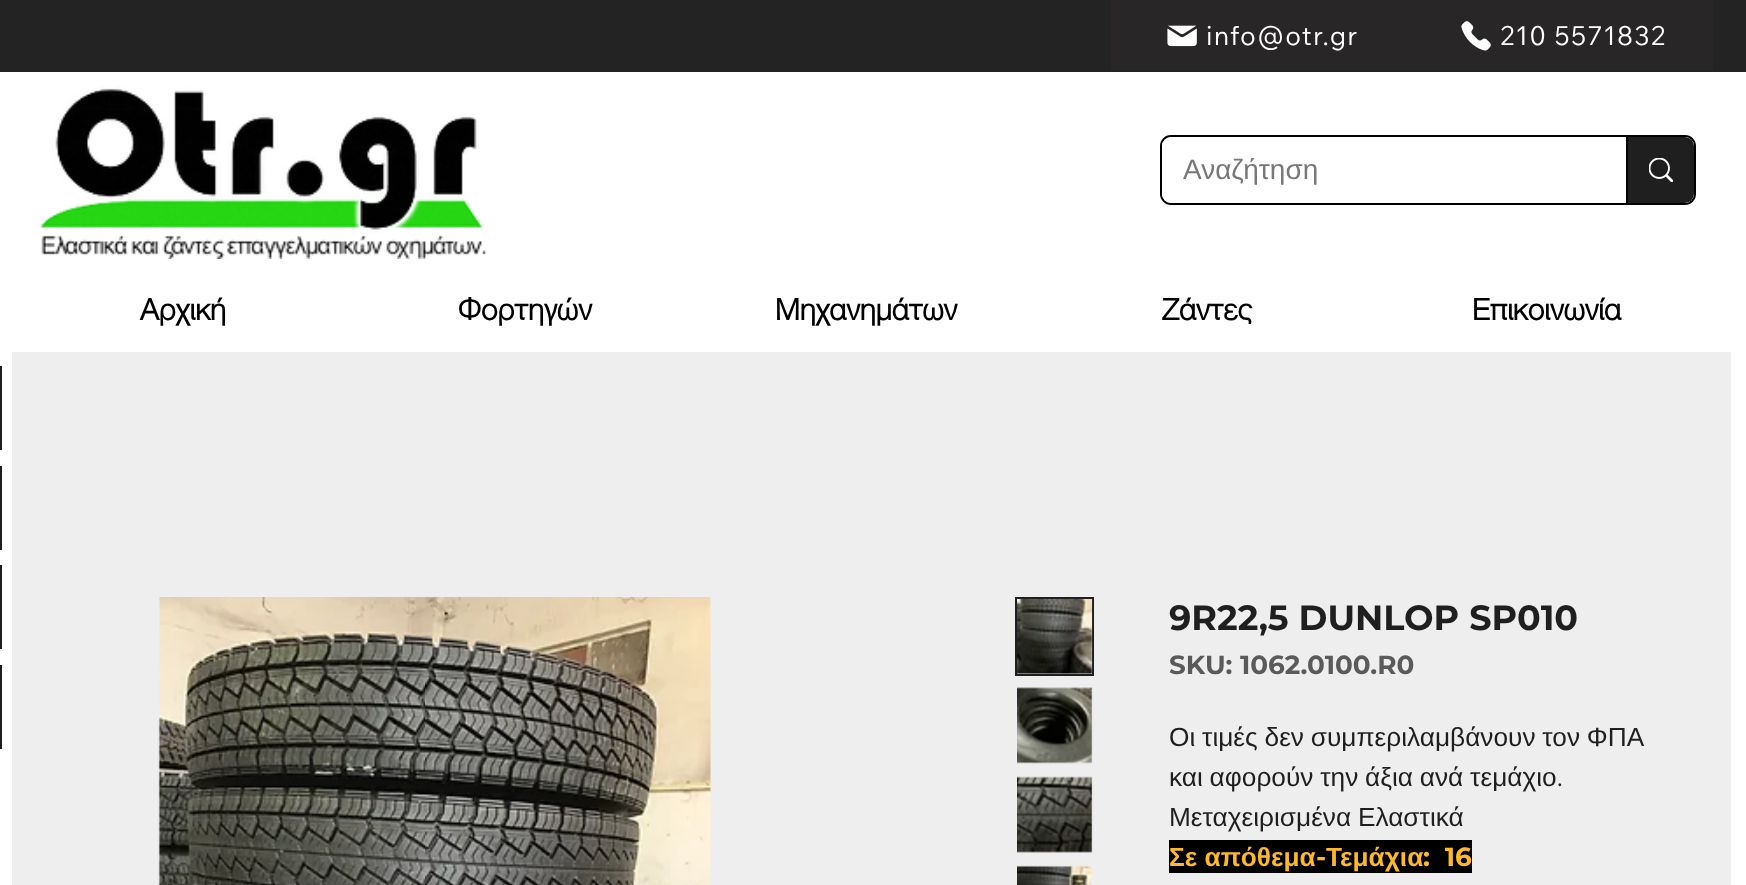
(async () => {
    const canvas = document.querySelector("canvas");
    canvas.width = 1746;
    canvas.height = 885;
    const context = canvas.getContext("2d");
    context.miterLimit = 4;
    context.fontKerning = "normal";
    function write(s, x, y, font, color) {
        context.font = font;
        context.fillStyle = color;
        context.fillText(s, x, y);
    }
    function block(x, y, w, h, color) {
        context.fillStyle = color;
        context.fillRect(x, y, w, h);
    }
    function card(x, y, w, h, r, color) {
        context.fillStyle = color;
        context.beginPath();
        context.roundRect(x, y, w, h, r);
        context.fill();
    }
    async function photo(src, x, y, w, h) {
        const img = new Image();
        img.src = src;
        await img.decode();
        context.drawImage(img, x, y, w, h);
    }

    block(0, 0, 1746, 885, "rgb(255, 255, 255)");
    block(0, 0, 1746, 72, "rgb(36, 35, 35)");
    block(1111, 0, 602, 70, "rgb(40, 38, 38)");
    await photo("media/1.png", 1167, 25, 30, 22);
    context.letterSpacing = "1.25px";
    write("info@otr.gr", 1206, 45, "26.25px Wix Madefor Text", "rgb(255, 255, 255)");
    await photo("media/2.png", 1461, 21, 30, 30);
    write("210 5571832", 1500, 45, "26.25px Wix Madefor Text", "rgb(255, 255, 255)");
    await photo("media/3.png", 40, 86, 447, 173);
    context.beginPath();
    context.roundRect(1161, 136, 534, 68, 10);
    context.strokeStyle = "rgb(0, 0, 0)";
    context.lineWidth = 2;
    context.stroke();
    card(1162, 137, 532, 66, 9, "rgb(255, 255, 255)");
    context.letterSpacing = "0px";
    write("Αναζήτηση", 1183, 179, "28px Liberation Sans", "rgb(120, 120, 120)");
    context.fillStyle = "rgb(31, 31, 31)";
    context.beginPath();
    context.roundRect(1626, 137, 68, 66, [0, 9, 9, 0]);
    context.fill();
    block(1626, 137, 2, 66, "rgb(0, 0, 0)");
    await photo("media/4.png", 1649, 158, 24, 24);
    write("Αρχική", 140, 320, "bold 29.75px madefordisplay", "rgb(0, 0, 0)");
    write("Φορτηγών", 458, 320, "bold 29.75px madefordisplay", "rgb(0, 0, 0)");
    write("Μηχανημάτων", 775, 320, "bold 29.75px madefordisplay", "rgb(0, 0, 0)");
    write("Ζάντες", 1162, 320, "bold 29.75px madefordisplay", "rgb(0, 0, 0)");
    write("Επικοινωνία", 1472, 320, "bold 29.75px madefordisplay", "rgb(0, 0, 0)");
    block(0, 366, 2, 84, "rgb(31, 31, 31)");
    block(0, 466, 2, 84, "rgb(31, 31, 31)");
    block(0, 565, 2, 84, "rgb(31, 31, 31)");
    block(0, 665, 2, 84, "rgb(31, 31, 31)");
    block(12, 352, 1719, 533, "rgb(238, 238, 238)");
    await photo("media/5.png", 158, 597, 553, 288);
    context.strokeStyle = "rgb(31, 31, 31)";
    context.strokeRect(1016, 598, 77, 77);
    await photo("media/6.png", 1017, 599, 76, 75);
    await photo("media/7.png", 1017, 687, 76, 77);
    await photo("media/8.png", 1017, 776, 76, 77);
    await photo("media/9.png", 1017, 865, 75, 20);
    write("9R22,5 DUNLOP SP010", 1169, 630, "bold 35px Montserrat", "rgb(31, 31, 31)");
    write("SKU: 1062.0100.R0", 1169, 674, "bold 26.25px Montserrat", "rgb(90, 90, 90)");
    context.wordSpacing = "-0.5px";
    write("Οι τιμές δεν συμπεριλαμβάνουν τον ΦΠΑ", 1169, 746, "26.25px Liberation Sans", "rgb(31, 31, 31)");
    write("και αφορούν την άξια ανά τεμάχιο", 1169, 786, "26.25px Liberation Sans", "rgb(31, 31, 31)");
    context.wordSpacing = "0px";
    write(".", 1557, 786, "26.25px Montserrat", "rgb(31, 31, 31)");
    context.wordSpacing = "-0.5px";
    write("Μεταχειρισμένα Ελαστικά", 1169, 826, "26.25px Liberation Sans", "rgb(31, 31, 31)");
    block(1169, 840, 303, 33, "rgb(0, 0, 0)");
    context.wordSpacing = "0px";
    write("Σε απόθεμα", 1169, 866, "bold 26.25px Liberation Sans", "rgb(252, 186, 40)");
    write("-", 1316, 866, "bold 26.25px Montserrat", "rgb(252, 186, 40)");
    write("Τεμάχια", 1326, 866, "bold 26.25px Liberation Sans", "rgb(252, 186, 40)");
    write(":  16", 1423, 866, "bold 26.25px Montserrat", "rgb(252, 186, 40)");
})();
